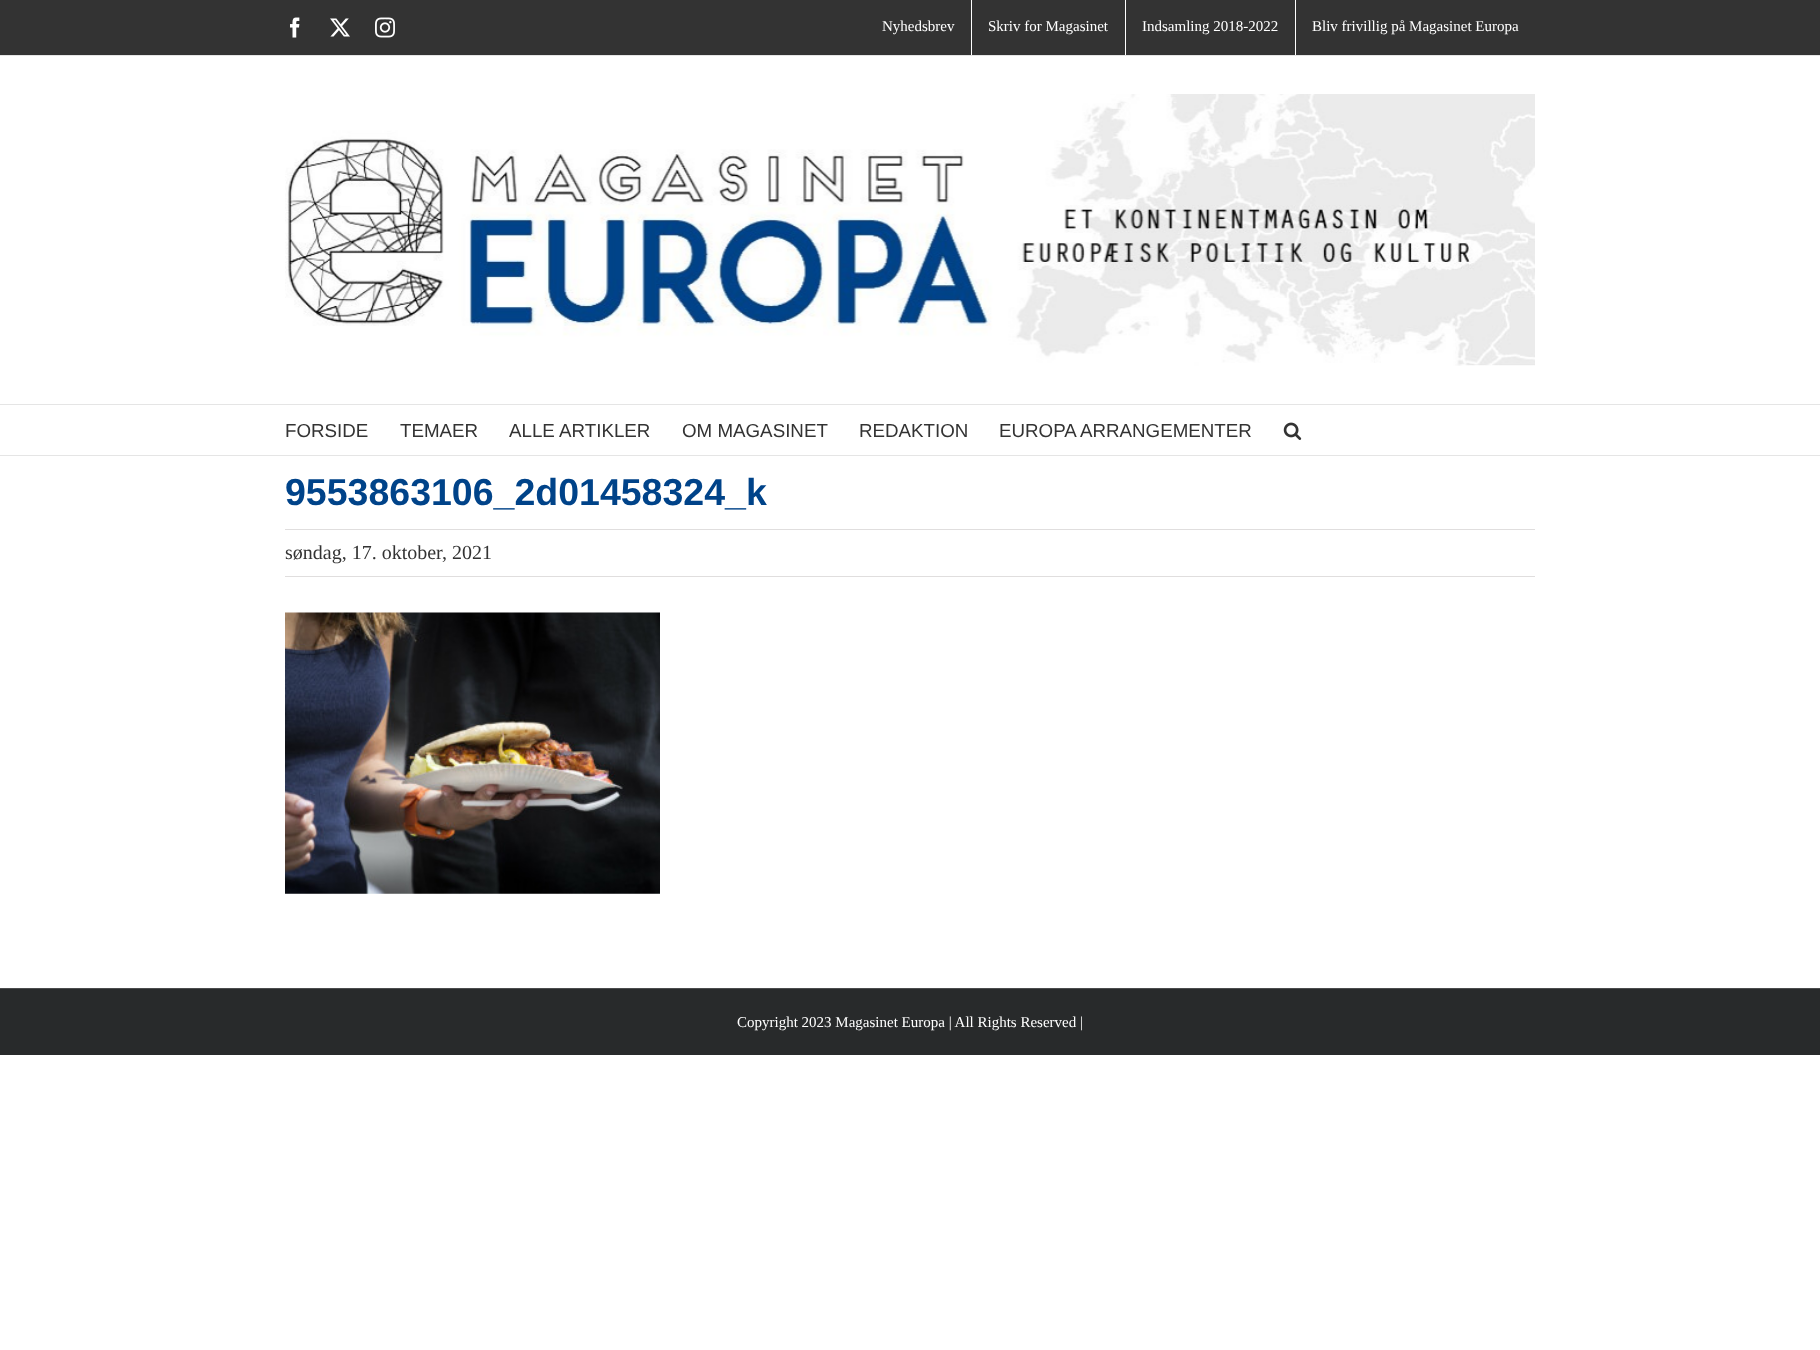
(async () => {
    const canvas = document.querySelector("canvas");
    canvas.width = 1820;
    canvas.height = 1350;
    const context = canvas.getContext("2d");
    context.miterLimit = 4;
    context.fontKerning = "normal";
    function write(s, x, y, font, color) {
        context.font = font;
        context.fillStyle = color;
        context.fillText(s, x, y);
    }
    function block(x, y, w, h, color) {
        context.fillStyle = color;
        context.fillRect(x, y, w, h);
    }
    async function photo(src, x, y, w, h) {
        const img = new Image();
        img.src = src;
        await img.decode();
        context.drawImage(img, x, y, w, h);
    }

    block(0, 0, 1820, 1350, "rgb(255, 255, 255)");
    block(0, 0, 1820, 55, "rgb(51, 51, 51)");
    block(0, 55, 1820, 1, "rgb(229, 229, 229)");
    await photo("media/1.png", 290, 17, 10, 21);
    await photo("media/2.png", 330, 18, 20, 19);
    await photo("media/3.png", 375, 17, 20, 21);
    write("Nyhedsbrev", 882, 31, "15px Liberation Serif", "rgb(255, 255, 255)");
    block(971, 0, 1, 55, "rgb(255, 255, 255)");
    write("Skriv for Magasinet", 988, 31, "15px Liberation Serif", "rgb(255, 255, 255)");
    block(1125, 0, 1, 55, "rgb(255, 255, 255)");
    write("Indsamling 2018-2022", 1142, 31, "15px Liberation Serif", "rgb(255, 255, 255)");
    block(1295, 0, 1, 55, "rgb(255, 255, 255)");
    write("Bliv frivillig på Magasinet Europa", 1312, 31, "15px Liberation Serif", "rgb(255, 255, 255)");
    block(0, 404, 1820, 1, "rgb(229, 229, 229)");
    await photo("media/4.png", 285, 94, 1250, 272);
    block(0, 455, 1820, 1, "rgb(229, 229, 229)");
    write("FORSIDE", 285, 437, "18.75px Liberation Sans", "rgb(51, 51, 51)");
    write("TEMAER", 400, 437, "18.75px Liberation Sans", "rgb(51, 51, 51)");
    write("ALLE ARTIKLER", 509, 437, "18.75px Liberation Sans", "rgb(51, 51, 51)");
    write("OM MAGASINET", 682, 437, "18.75px Liberation Sans", "rgb(51, 51, 51)");
    write("REDAKTION", 859, 437, "18.75px Liberation Sans", "rgb(51, 51, 51)");
    write("EUROPA ARRANGEMENTER", 999, 437, "18.75px Liberation Sans", "rgb(51, 51, 51)");
    await photo("media/5.png", 1283, 422, 19, 18);
    write("9553863106_2d01458324_k", 285, 505, "bold 37.5px Liberation Sans", "rgb(0, 67, 137)");
    block(285, 529, 1250, 1, "rgb(224, 222, 222)");
    block(285, 576, 1250, 1, "rgb(224, 222, 222)");
    write("søndag, 17. oktober, 2021", 285, 559, "20px Liberation Serif", "rgb(51, 51, 51)");
    await photo("media/6.png", 285, 612, 375, 282);
    block(0, 989, 1820, 66, "rgb(40, 42, 43)");
    block(0, 988, 1820, 1, "rgb(75, 76, 77)");
    write("Copyright 2023 Magasinet Europa | All Rights Reserved |", 737, 1027, "15px Liberation Serif", "rgb(255, 255, 255)");
})();
